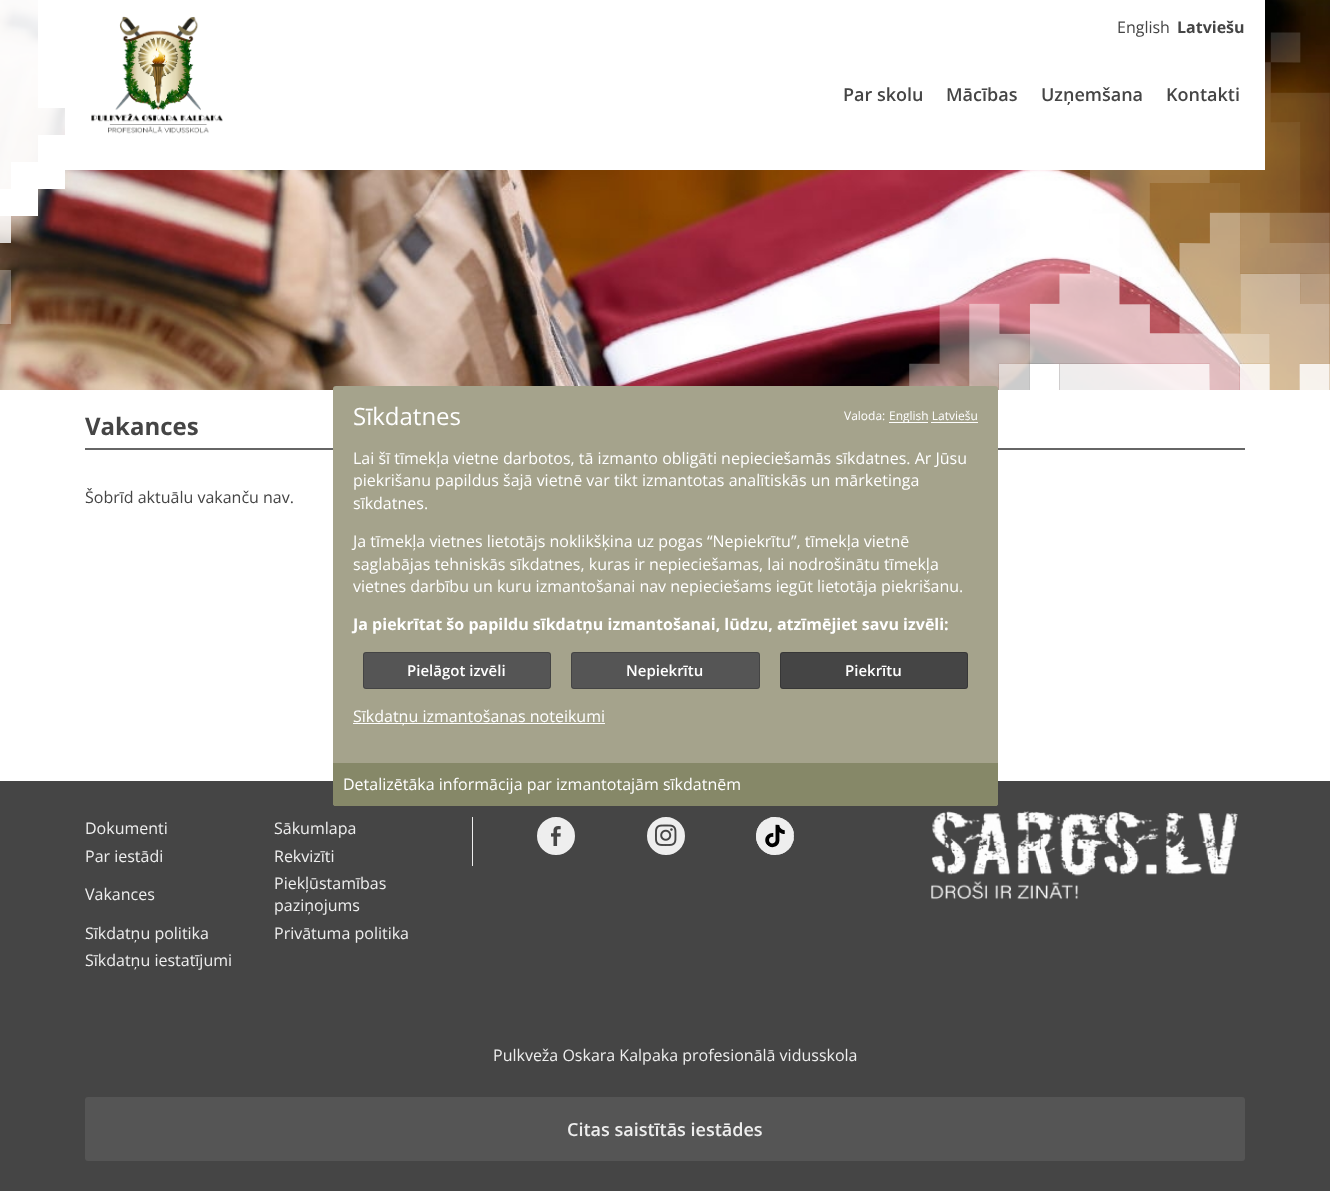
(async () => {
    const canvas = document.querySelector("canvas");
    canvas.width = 1330;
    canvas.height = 1191;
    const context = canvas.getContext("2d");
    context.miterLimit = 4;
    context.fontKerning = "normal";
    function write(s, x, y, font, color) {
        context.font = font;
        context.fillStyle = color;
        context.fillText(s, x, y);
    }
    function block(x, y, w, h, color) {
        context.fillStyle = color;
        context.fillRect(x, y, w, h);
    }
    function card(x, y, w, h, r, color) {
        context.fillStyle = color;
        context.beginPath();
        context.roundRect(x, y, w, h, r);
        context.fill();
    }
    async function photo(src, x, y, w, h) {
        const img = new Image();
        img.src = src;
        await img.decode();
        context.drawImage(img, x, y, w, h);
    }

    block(0, 0, 1330, 1191, "rgb(255, 255, 255)");
    await photo("media/1.png", 0, 0, 1330, 390);
    await photo("media/4.png", 909, 32, 421, 358);
    block(65, 0, 1200, 170, "rgb(255, 255, 255)");
    await photo("media/2.png", 0, 0, 65, 324);
    await photo("media/3.png", 91, 16, 132, 118);
    write("English", 1117, 33, "16px Open Sans", "rgb(69, 69, 69)");
    write("Latviešu", 1177, 33, "bold 16px Open Sans", "rgb(69, 69, 69)");
    write("Par skolu", 843, 101, "600 18px Open Sans", "rgb(69, 69, 69)");
    write("Mācības", 946, 101, "600 18px Open Sans", "rgb(69, 69, 69)");
    write("Uzņemšana", 1041, 101, "600 18px Open Sans", "rgb(69, 69, 69)");
    write("Kontakti", 1166, 101, "600 18px Open Sans", "rgb(69, 69, 69)");
    block(85, 448, 1160, 2, "rgb(102, 102, 102)");
    write("Vakances", 85, 435, "bold 24px Open Sans", "rgb(69, 69, 69)");
    write("Šobrīd aktuālu vakanču nav.", 85, 503, "16px Open Sans", "rgb(69, 69, 69)");
    block(0, 781, 1330, 410, "rgb(69, 69, 69)");
    write("Dokumenti", 85, 834, "16px Open Sans", "rgb(238, 238, 238)");
    write("Sākumlapa", 274, 834, "16px Open Sans", "rgb(238, 238, 238)");
    write("Par iestādi", 85, 862, "16px Open Sans", "rgb(238, 238, 238)");
    write("Rekvizīti", 274, 862, "16px Open Sans", "rgb(238, 238, 238)");
    write("Vakances", 85, 900, "16px Open Sans", "rgb(238, 238, 238)");
    write("Piekļūstamības", 274, 889, "16px Open Sans", "rgb(238, 238, 238)");
    write("paziņojums", 274, 911, "16px Open Sans", "rgb(238, 238, 238)");
    write("Sīkdatņu politika", 85, 939, "16px Open Sans", "rgb(238, 238, 238)");
    write("Privātuma politika", 274, 939, "16px Open Sans", "rgb(238, 238, 238)");
    write("Sīkdatņu iestatījumi", 85, 966, "16px Open Sans", "rgb(238, 238, 238)");
    block(472, 817, 1, 49, "rgb(238, 238, 238)");
    context.beginPath();
    context.arc(556, 836, 17.5, 0, Math.PI * 2);
    context.fill();
    context.strokeStyle = "rgb(238, 238, 238)";
    context.lineWidth = 3;
    context.stroke();
    await photo("media/5.png", 551, 826, 10, 20);
    context.beginPath();
    context.arc(666, 836, 17.5, 0, Math.PI * 2);
    context.fill();
    context.stroke();
    await photo("media/6.png", 655, 824, 22, 22);
    context.beginPath();
    context.arc(775, 836, 19, 0, Math.PI * 2);
    context.fill();
    await photo("media/7.png", 756, 817, 38, 38);
    context.beginPath();
    context.arc(775, 836, 15.5, 0, Math.PI * 2);
    context.lineWidth = 7;
    context.stroke();
    await photo("media/8.png", 931, 811, 307, 89);
    write("Pulkveža Oskara Kalpaka profesionālā vidusskola", 493, 1061, "16px Open Sans", "rgb(238, 238, 238)");
    card(85, 1097, 1160, 64, 3, "rgb(85, 85, 85)");
    write("Citas saistītās iestādes", 567, 1136, "600 18px Open Sans", "rgb(238, 238, 238)");
    card(333, 386, 665, 420, 3, "rgb(165, 163, 140)");
    write("Sīkdatnes", 353, 425, "24px Open Sans", "rgb(255, 255, 255)");
    write("Valoda:", 844, 420, "12px Open Sans", "rgb(255, 255, 255)");
    block(889, 422, 39, 1, "rgb(255, 255, 255)");
    write("English Latviešu", 889, 420, "12px Open Sans", "rgb(255, 255, 255)");
    block(931, 422, 47, 1, "rgb(255, 255, 255)");
    write("Lai šī tīmekļa vietne darbotos, tā izmanto obligāti nepieciešamās sīkdatnes. Ar Jūsu", 353, 464, "16px Open Sans", "rgb(255, 255, 255)");
    write("piekrišanu papildus šajā vietnē var tikt izmantotas analītiskās un mārketinga", 353, 486, "16px Open Sans", "rgb(255, 255, 255)");
    write("sīkdatnes.", 353, 509, "16px Open Sans", "rgb(255, 255, 255)");
    write("Ja tīmekļa vietnes lietotājs noklikšķina uz pogas “Nepiekrītu”, tīmekļa vietnē", 353, 547, "16px Open Sans", "rgb(255, 255, 255)");
    write("saglabājas tehniskās sīkdatnes, kuras ir nepieciešamas, lai nodrošinātu tīmekļa", 353, 570, "16px Open Sans", "rgb(255, 255, 255)");
    write("vietnes darbību un kuru izmantošanai nav nepieciešams iegūt lietotāja piekrišanu.", 353, 592, "16px Open Sans", "rgb(255, 255, 255)");
    write("Ja piekrītat šo papildu sīkdatņu izmantošanai, lūdzu, atzīmējiet savu izvēli:", 353, 630, "bold 16px Open Sans", "rgb(255, 255, 255)");
    card(363, 652, 188, 37, 3, "rgb(85, 85, 85)");
    context.beginPath();
    context.roundRect(363.5, 652.5, 187, 36, 2.5);
    context.strokeStyle = "rgba(0, 0, 0, 0.2)";
    context.lineWidth = 1;
    context.stroke();
    write("Pielāgot izvēli", 407, 676, "600 15px Open Sans", "rgb(255, 255, 255)");
    card(571, 652, 189, 37, 3, "rgb(85, 85, 85)");
    context.beginPath();
    context.roundRect(571.5, 652.5, 188, 36, 2.5);
    context.stroke();
    write("Nepiekrītu", 626, 676, "600 15px Open Sans", "rgb(255, 255, 255)");
    card(780, 652, 188, 37, 3, "rgb(69, 69, 69)");
    context.beginPath();
    context.roundRect(780.5, 652.5, 187, 36, 2.5);
    context.stroke();
    write("Piekrītu", 845, 676, "600 15px Open Sans", "rgb(255, 255, 255)");
    block(353, 723, 252, 1, "rgb(255, 255, 255)");
    write("Sīkdatņu izmantošanas noteikumi", 353, 722, "16px Open Sans", "rgb(255, 255, 255)");
    context.fillStyle = "rgb(134, 136, 104)";
    context.beginPath();
    context.roundRect(333, 763, 665, 43, [0, 0, 3, 3]);
    context.fill();
    write("Detalizētāka informācija par izmantotajām sīkdatnēm", 343, 790, "16px Open Sans", "rgb(255, 255, 255)");
})();
